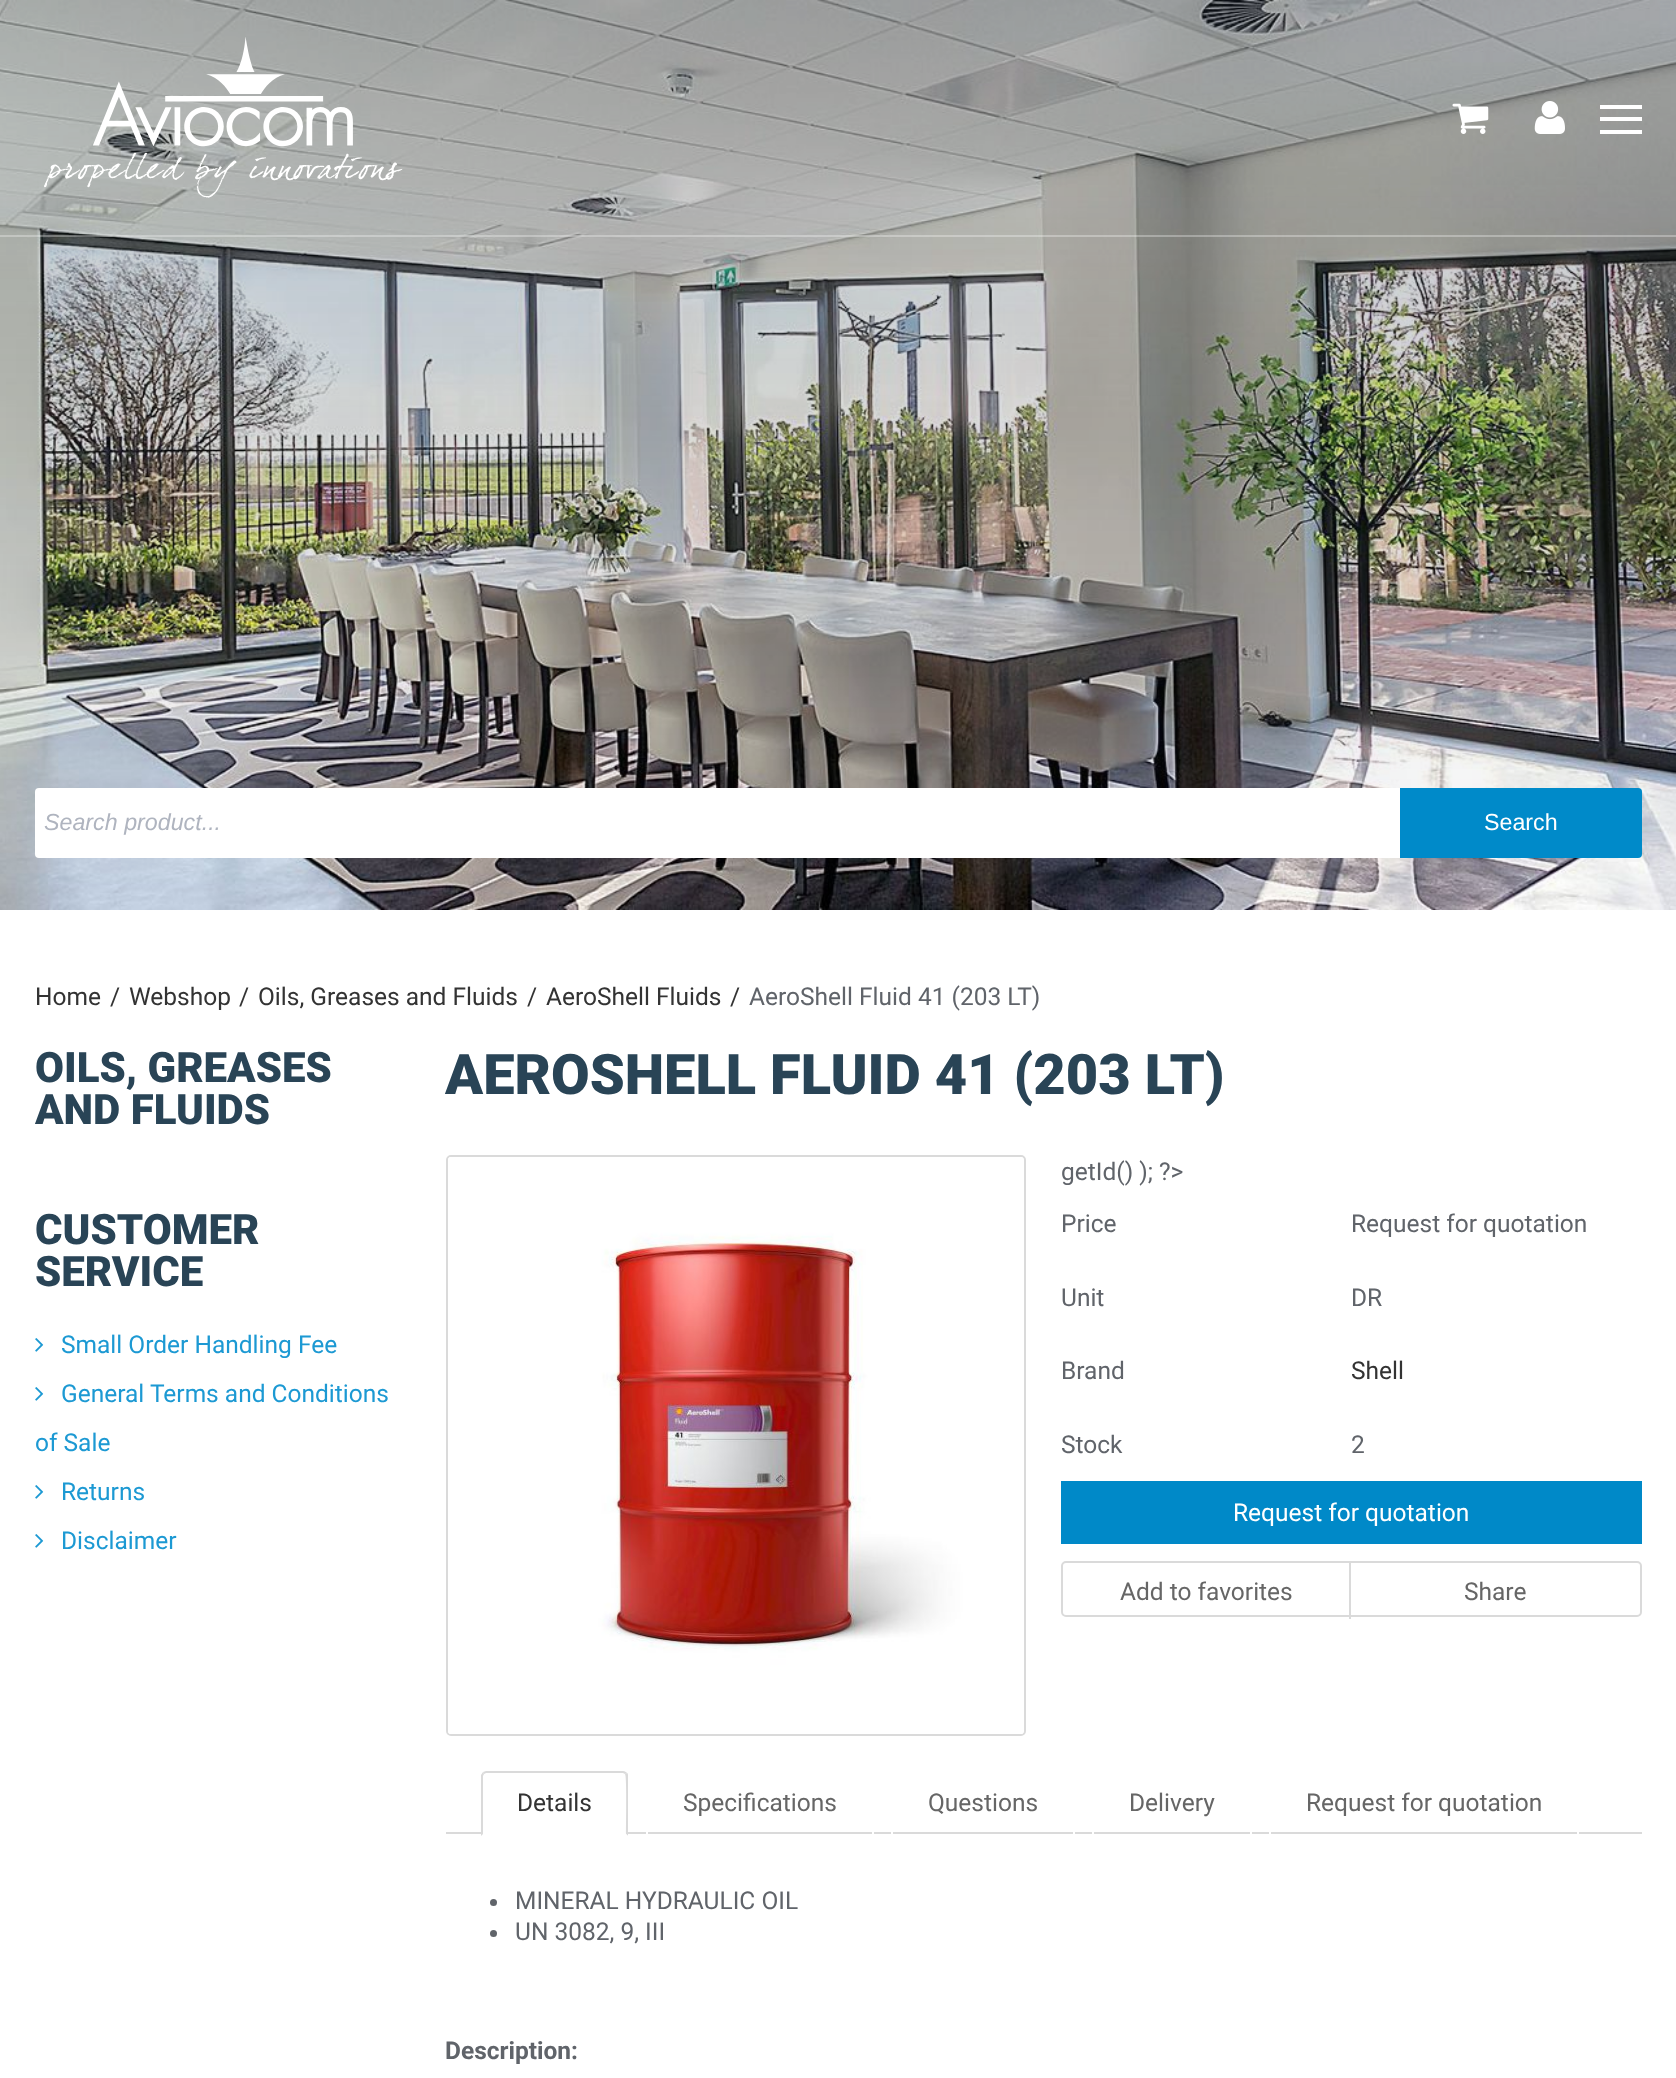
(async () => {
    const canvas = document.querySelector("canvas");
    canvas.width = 1676;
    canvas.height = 2078;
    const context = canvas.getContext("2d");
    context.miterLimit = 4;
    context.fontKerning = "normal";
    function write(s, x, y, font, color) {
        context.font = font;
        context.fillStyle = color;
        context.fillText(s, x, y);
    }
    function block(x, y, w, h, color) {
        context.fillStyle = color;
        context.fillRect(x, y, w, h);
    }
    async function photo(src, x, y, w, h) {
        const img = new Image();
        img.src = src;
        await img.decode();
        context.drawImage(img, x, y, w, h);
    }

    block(0, 0, 1676, 2078, "rgb(255, 255, 255)");
    await photo("media/4.png", 0, 0, 1676, 910);
    block(0, 235, 1676, 2, "rgba(255, 255, 255, 0.3)");
    await photo("media/1.png", 44, 37, 359, 161);
    await photo("media/2.png", 1452, 103, 37, 31);
    await photo("media/3.png", 1534, 101, 31, 33);
    block(1600, 117, 42, 4, "rgb(255, 255, 255)");
    block(1600, 105, 42, 4, "rgb(255, 255, 255)");
    block(1600, 130, 42, 4, "rgb(255, 255, 255)");
    context.beginPath();
    context.roundRect(35, 788, 1365, 70, [4, 0, 0, 4]);
    context.fill();
    write("Search product...", 44, 830, "italic 23.25px Liberation Sans", "rgb(175, 180, 191)");
    context.fillStyle = "rgb(0, 138, 201)";
    context.beginPath();
    context.roundRect(1400, 788, 242, 70, [0, 4, 4, 0]);
    context.fill();
    write("Search", 1484, 830, "23.25px Liberation Sans", "rgb(255, 255, 255)");
    write("Home", 35, 1005, "24.5px Roboto", "rgb(51, 51, 51)");
    write("/", 110, 1005, "24.5px Roboto", "rgb(51, 51, 51)");
    write("Webshop", 129, 1005, "24.5px Roboto", "rgb(51, 51, 51)");
    write("/", 239, 1005, "24.5px Roboto", "rgb(51, 51, 51)");
    write("Oils, Greases and Fluids", 258, 1005, "24.5px Roboto", "rgb(51, 51, 51)");
    write("/", 527, 1005, "24.5px Roboto", "rgb(51, 51, 51)");
    write("AeroShell Fluids", 546, 1005, "24.5px Roboto", "rgb(51, 51, 51)");
    write("/", 730, 1005, "24.5px Roboto", "rgb(51, 51, 51)");
    write("AeroShell Fluid 41 (203 LT)", 749, 1005, "24.5px Roboto", "rgb(96, 100, 106)");
    write("OILS, GREASES", 35, 1082, "900 42px Roboto", "rgb(41, 68, 86)");
    write("AND FLUIDS", 35, 1124, "900 42px Roboto", "rgb(41, 68, 86)");
    write("CUSTOMER", 35, 1244, "900 42px Roboto", "rgb(41, 68, 86)");
    write("SERVICE", 35, 1286, "900 42px Roboto", "rgb(41, 68, 86)");
    await photo("media/5.png", 35, 1338, 9, 14);
    write("Small Order Handling Fee", 61, 1353, "24.5px Roboto", "rgb(28, 153, 211)");
    await photo("media/5.png", 35, 1387, 9, 14);
    write("General Terms and Conditions", 61, 1402, "24.5px Roboto", "rgb(28, 153, 211)");
    write("of Sale", 35, 1451, "24.5px Roboto", "rgb(28, 153, 211)");
    await photo("media/5.png", 35, 1485, 9, 14);
    write("Returns", 61, 1500, "24.5px Roboto", "rgb(28, 153, 211)");
    await photo("media/5.png", 35, 1534, 9, 14);
    write("Disclaimer", 61, 1549, "24.5px Roboto", "rgb(28, 153, 211)");
    write("AEROSHELL FLUID 41 (203 LT)", 445, 1094, "900 56px Roboto", "rgb(41, 68, 86)");
    context.beginPath();
    context.roundRect(447, 1156, 578, 579, 4);
    context.strokeStyle = "rgb(218, 218, 218)";
    context.lineWidth = 2;
    context.stroke();
    await photo("media/6.png", 448, 1157, 576, 577);
    write("getId() ); ?>", 1061, 1180, "24.5px Roboto", "rgb(96, 100, 106)");
    write("Price", 1061, 1232, "24.5px Roboto", "rgb(96, 100, 106)");
    write("Request for quotation", 1351, 1232, "24.5px Roboto", "rgb(96, 100, 106)");
    write("Unit", 1061, 1306, "24.5px Roboto", "rgb(96, 100, 106)");
    write("DR", 1351, 1306, "24.5px Roboto", "rgb(96, 100, 106)");
    write("Brand", 1061, 1379, "24.5px Roboto", "rgb(96, 100, 106)");
    write("Shell", 1351, 1379, "24.5px Roboto", "rgb(51, 51, 51)");
    write("Stock", 1061, 1453, "24.5px Roboto", "rgb(96, 100, 106)");
    write("2", 1351, 1453, "24.5px Roboto", "rgb(96, 100, 106)");
    block(1061, 1481, 581, 63, "rgb(0, 137, 200)");
    write("Request for quotation", 1233, 1521, "24.5px Roboto", "rgb(255, 255, 255)");
    context.beginPath();
    context.roundRect(1062, 1562, 579, 54, 4);
    context.stroke();
    block(1349, 1563, 2, 56, "rgb(218, 218, 218)");
    write("Add to favorites", 1120, 1600, "24.5px Roboto", "rgb(102, 102, 102)");
    write("Share", 1464, 1600, "24.5px Roboto", "rgb(102, 102, 102)");
    block(446, 1832, 1196, 2, "rgb(218, 218, 218)");
    context.fillStyle = "rgb(255, 255, 255)";
    context.beginPath();
    context.roundRect(481, 1771, 147, 65, [5, 5, 0, 0]);
    context.fill();
    context.fillStyle = "rgb(218, 218, 218)";
    context.beginPath();
    context.moveTo(486, 1771);
    context.lineTo(483, 1772);
    context.lineTo(484, 1774);
    context.lineTo(486, 1773);
    context.lineTo(623, 1773);
    context.lineTo(625, 1774);
    context.lineTo(627, 1773);
    context.bezierCurveTo(626, 1772, 625, 1771, 623, 1771);
    context.closePath();
    context.fill();
    context.beginPath();
    context.moveTo(627, 1773);
    context.bezierCurveTo(628, 1773, 628, 1775, 628, 1776);
    context.lineTo(628, 1836);
    context.lineTo(626, 1834);
    context.bezierCurveTo(626, 1827, 627, 1776, 625, 1774);
    context.closePath();
    context.fill();
    context.fillStyle = "rgb(255, 255, 255)";
    context.beginPath();
    context.moveTo(628, 1836);
    context.lineTo(481, 1836);
    context.lineTo(483, 1834);
    context.lineTo(626, 1834);
    context.closePath();
    context.fill();
    context.fillStyle = "rgb(218, 218, 218)";
    context.beginPath();
    context.moveTo(481, 1836);
    context.lineTo(481, 1775);
    context.lineTo(483, 1772);
    context.lineTo(484, 1774);
    context.lineTo(483, 1776);
    context.lineTo(483, 1834);
    context.closePath();
    context.fill();
    write("Details", 517, 1811, "24.5px Roboto", "rgb(51, 51, 51)");
    block(872, 1832, 2, 2, "rgb(255, 255, 255)");
    block(646, 1832, 2, 2, "rgb(255, 255, 255)");
    write("Specifications", 683, 1811, "24.5px Roboto", "rgb(102, 102, 102)");
    block(1073, 1832, 2, 2, "rgb(255, 255, 255)");
    block(891, 1832, 2, 2, "rgb(255, 255, 255)");
    write("Questions", 928, 1811, "24.5px Roboto", "rgb(102, 102, 102)");
    block(1250, 1832, 2, 2, "rgb(255, 255, 255)");
    block(1092, 1832, 2, 2, "rgb(255, 255, 255)");
    write("Delivery", 1129, 1811, "24.5px Roboto", "rgb(102, 102, 102)");
    block(1577, 1832, 2, 2, "rgb(255, 255, 255)");
    block(1269, 1832, 2, 2, "rgb(255, 255, 255)");
    write("Request for quotation", 1306, 1811, "24.5px Roboto", "rgb(102, 102, 102)");
    context.fillStyle = "rgb(96, 100, 106)";
    context.beginPath();
    context.arc(493.5, 1902.5, 3.5, 0, Math.PI * 2);
    context.fill();
    write("MINERAL HYDRAULIC OIL", 515, 1909, "24.5px Roboto", "rgb(96, 100, 106)");
    context.beginPath();
    context.arc(493.5, 1933.5, 3.5, 0, Math.PI * 2);
    context.fill();
    write("UN 3082, 9, III", 515, 1940, "24.5px Roboto", "rgb(96, 100, 106)");
    write("Description:", 445, 2059, "bold 24.5px Roboto", "rgb(96, 100, 106)");
})();
